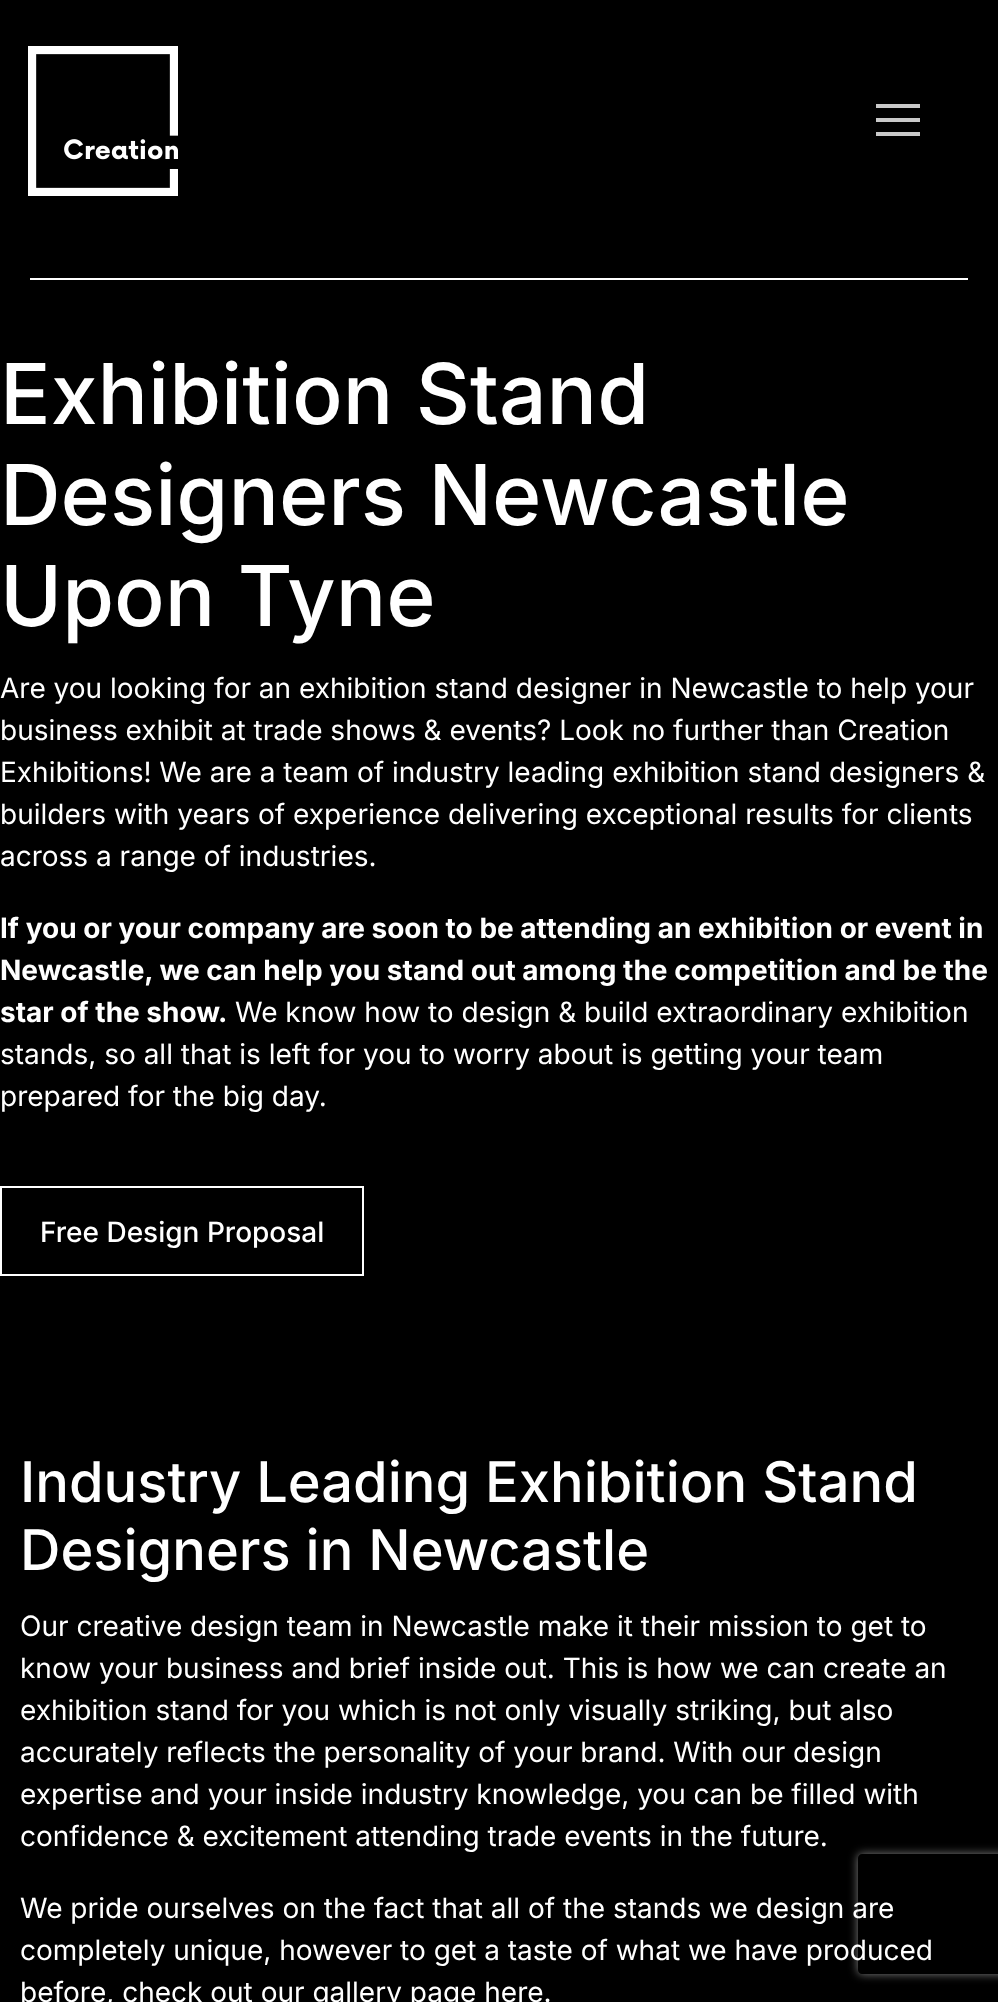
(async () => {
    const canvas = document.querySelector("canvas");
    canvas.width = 998;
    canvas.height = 2002;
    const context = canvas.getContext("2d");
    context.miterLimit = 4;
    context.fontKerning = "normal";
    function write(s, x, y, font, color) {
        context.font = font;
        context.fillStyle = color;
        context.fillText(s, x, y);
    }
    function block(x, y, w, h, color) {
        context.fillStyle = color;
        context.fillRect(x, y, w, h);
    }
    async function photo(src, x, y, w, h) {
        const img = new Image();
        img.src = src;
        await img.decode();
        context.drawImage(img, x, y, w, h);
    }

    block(0, 0, 998, 2002, "rgb(0, 0, 0)");
    await photo("media/1.png", 28, 46, 150, 150);
    block(876, 118, 44, 4, "rgb(201, 201, 201)");
    block(876, 104, 44, 4, "rgb(201, 201, 201)");
    block(876, 132, 44, 4, "rgb(201, 201, 201)");
    block(30, 278, 938, 2, "rgb(255, 255, 255)");
    write("Exhibition Stand", 0, 424, "500 84px Inter", "rgb(255, 255, 255)");
    write("Designers Newcastle", 0, 525, "500 84px Inter", "rgb(255, 255, 255)");
    write("Upon Tyne", 0, 626, "500 84px Inter", "rgb(255, 255, 255)");
    write("Are you looking for an exhibition stand designer in Newcastle to help your", 0, 698, "28px Inter", "rgb(255, 255, 255)");
    write("business exhibit at trade shows & events? Look no further than Creation", 0, 740, "28px Inter", "rgb(255, 255, 255)");
    write("Exhibitions! We are a team of industry leading exhibition stand designers &", 0, 782, "28px Inter", "rgb(255, 255, 255)");
    write("builders with years of experience delivering exceptional results for clients", 0, 824, "28px Inter", "rgb(255, 255, 255)");
    write("across a range of industries.", 0, 866, "28px Inter", "rgb(255, 255, 255)");
    write("If you or your company are soon to be attending an exhibition or event in", 0, 938, "bold 28px Inter", "rgb(255, 255, 255)");
    write("Newcastle, we can help you stand out among the competition and be the", 0, 980, "bold 28px Inter", "rgb(255, 255, 255)");
    write("star of the show.", 0, 1022, "bold 28px Inter", "rgb(255, 255, 255)");
    write("We know how to design & build extraordinary exhibition", 235, 1022, "28px Inter", "rgb(255, 255, 255)");
    write("stands, so all that is left for you to worry about is getting your team", 0, 1064, "28px Inter", "rgb(255, 255, 255)");
    write("prepared for the big day.", 0, 1106, "28px Inter", "rgb(255, 255, 255)");
    context.strokeStyle = "rgb(255, 255, 255)";
    context.lineWidth = 2;
    context.strokeRect(1, 1187, 362, 88);
    write("Free Design Proposal", 40, 1242, "500 28px Inter", "rgb(255, 255, 255)");
    write("Industry Leading Exhibition Stand", 20, 1502, "500 56px Inter", "rgb(255, 255, 255)");
    write("Designers in Newcastle", 20, 1570, "500 56px Inter", "rgb(255, 255, 255)");
    write("Our creative design team in Newcastle make it their mission to get to", 20, 1636, "28px Inter", "rgb(255, 255, 255)");
    write("know your business and brief inside out. This is how we can create an", 20, 1678, "28px Inter", "rgb(255, 255, 255)");
    write("exhibition stand for you which is not only visually striking, but also", 20, 1720, "28px Inter", "rgb(255, 255, 255)");
    write("accurately reflects the personality of your brand. With our design", 20, 1762, "28px Inter", "rgb(255, 255, 255)");
    write("expertise and your inside industry knowledge, you can be filled with", 20, 1804, "28px Inter", "rgb(255, 255, 255)");
    write("confidence & excitement attending trade events in the future.", 20, 1846, "28px Inter", "rgb(255, 255, 255)");
    context.save();
    context.beginPath();
    context.moveTo(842, 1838);
    context.lineTo(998, 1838);
    context.lineTo(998, 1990);
    context.lineTo(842, 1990);
    context.closePath();
    context.moveTo(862, 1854);
    context.lineTo(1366, 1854);
    context.bezierCurveTo(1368, 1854, 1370, 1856, 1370, 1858);
    context.lineTo(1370, 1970);
    context.bezierCurveTo(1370, 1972, 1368, 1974, 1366, 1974);
    context.lineTo(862, 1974);
    context.bezierCurveTo(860, 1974, 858, 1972, 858, 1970);
    context.lineTo(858, 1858);
    context.bezierCurveTo(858, 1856, 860, 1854, 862, 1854);
    context.closePath();
    context.clip("evenodd");
    context.fillStyle = "rgb(128, 128, 128)";
    context.filter = "blur(5px)";
    context.beginPath();
    context.roundRect(858, 1854, 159, 120, 4);
    context.fill();
    context.filter = "none";
    context.restore();
    write("We pride ourselves on the fact that all of the stands we design are", 20, 1918, "28px Inter", "rgb(255, 255, 255)");
    write("completely unique, however to get a taste of what we have produced", 20, 1960, "28px Inter", "rgb(255, 255, 255)");
    write("before, check out our gallery page here.", 20, 2002, "28px Inter", "rgb(255, 255, 255)");
})();
